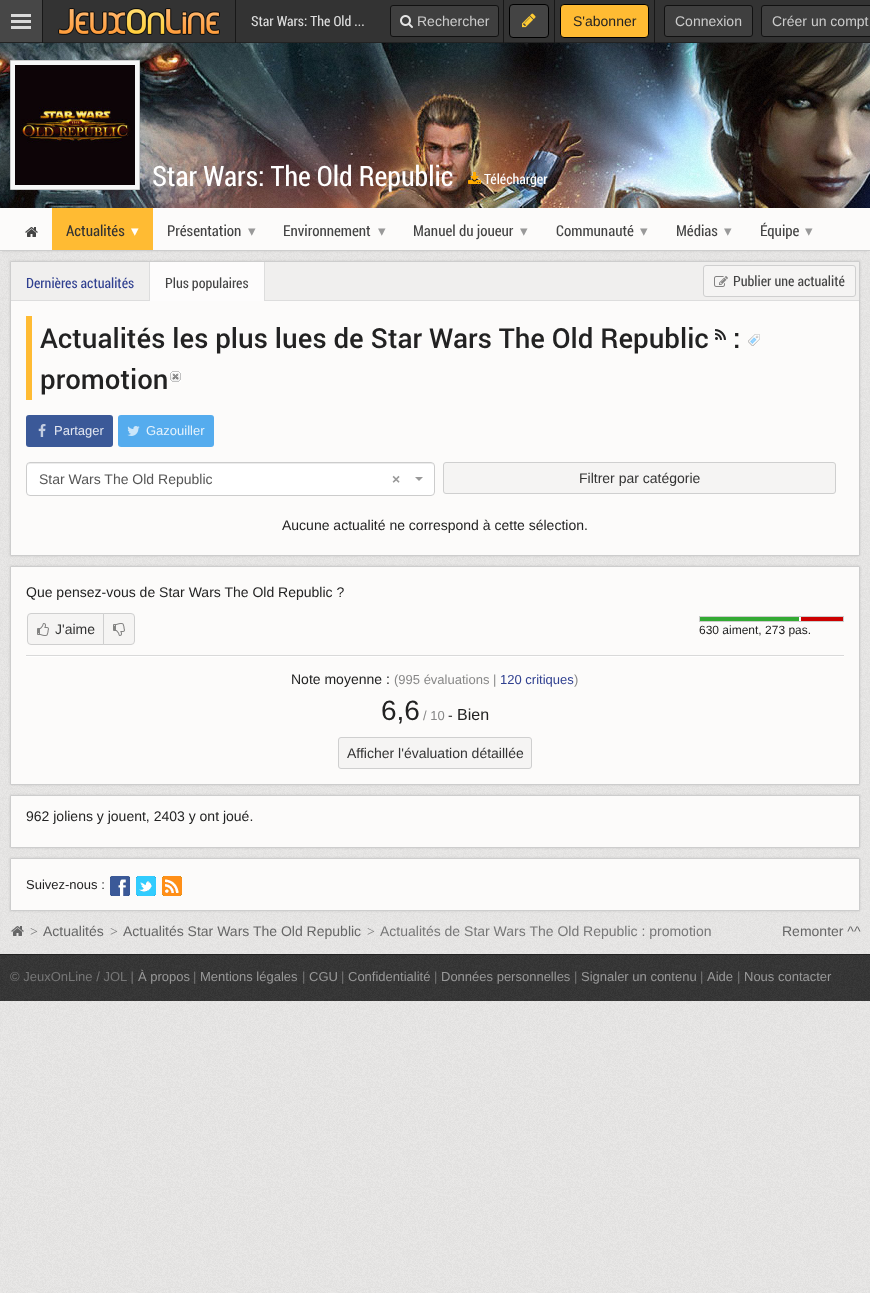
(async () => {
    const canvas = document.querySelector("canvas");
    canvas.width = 870;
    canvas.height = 1293;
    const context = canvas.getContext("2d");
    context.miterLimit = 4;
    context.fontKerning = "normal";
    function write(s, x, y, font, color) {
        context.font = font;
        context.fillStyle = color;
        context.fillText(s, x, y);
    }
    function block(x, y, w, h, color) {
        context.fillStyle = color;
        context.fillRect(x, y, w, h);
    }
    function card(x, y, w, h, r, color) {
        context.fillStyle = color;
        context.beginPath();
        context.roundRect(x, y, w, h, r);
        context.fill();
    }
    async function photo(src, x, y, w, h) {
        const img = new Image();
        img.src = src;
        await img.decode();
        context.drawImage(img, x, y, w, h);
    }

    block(0, 0, 870, 1293, "rgb(234, 233, 232)");
    await photo("media/1.png", 0, 251, 870, 1042);
    block(43, 0, 827, 42, "rgb(51, 51, 51)");
    block(0, 42, 870, 1, "rgb(34, 34, 34)");
    block(0, 0, 42, 42, "rgb(71, 71, 71)");
    block(11, 14, 20, 3, "rgb(218, 218, 218)");
    block(11, 20, 20, 3, "rgb(218, 218, 218)");
    block(11, 26, 20, 3, "rgb(218, 218, 218)");
    block(42, 0, 1, 43, "rgb(24, 24, 24)");
    await photo("media/2.png", 58, 8, 162, 27);
    block(235, 0, 1, 43, "rgb(24, 24, 24)");
    write("Star Wars: The Old ...", 251, 26, "14px Roboto Condensed", "rgb(221, 221, 221)");
    context.fillStyle = "rgb(63, 63, 63)";
    context.beginPath();
    context.roundRect(390.5, 5.5, 108, 31, 2.5);
    context.fill();
    context.strokeStyle = "rgb(17, 17, 17)";
    context.stroke();
    await photo("media/3.png", 400, 15, 13, 13);
    write("Rechercher", 417, 26, "14px Liberation Sans", "rgb(204, 204, 204)");
    block(503, 0, 1, 43, "rgb(24, 24, 24)");
    context.fillStyle = "rgb(68, 68, 68)";
    context.beginPath();
    context.roundRect(509.5, 4.5, 39, 33, 3.5);
    context.fill();
    context.strokeStyle = "rgb(0, 0, 0)";
    context.stroke();
    await photo("media/4.png", 522, 13, 14, 15);
    block(554, 0, 1, 43, "rgb(24, 24, 24)");
    context.fillStyle = "rgb(255, 187, 51)";
    context.beginPath();
    context.roundRect(560.5, 4.5, 88, 33, 3.5);
    context.fill();
    context.stroke();
    write("S'abonner", 573, 26, "14px Liberation Sans", "rgb(34, 34, 34)");
    block(654, 0, 1, 43, "rgb(24, 24, 24)");
    context.fillStyle = "rgb(63, 63, 63)";
    context.beginPath();
    context.roundRect(664.5, 5.5, 88, 31, 2.5);
    context.fill();
    context.strokeStyle = "rgb(17, 17, 17)";
    context.stroke();
    write("Connexion", 675, 26, "14px Liberation Sans", "rgb(204, 204, 204)");
    context.fillStyle = "rgb(63, 63, 63)";
    context.beginPath();
    context.roundRect(761.5, 5.5, 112, 31, 2.5);
    context.fill();
    context.stroke();
    write("Créer un compt", 772, 26, "14px Liberation Sans", "rgb(204, 204, 204)");
    await photo("media/5.png", 0, 43, 870, 165);
    await photo("media/6.png", 0, 43, 870, 165);
    context.fillStyle = "rgb(247, 247, 247)";
    context.beginPath();
    context.rect(10.5, 60.5, 129, 129);
    context.fill();
    context.strokeStyle = "rgb(204, 204, 204)";
    context.stroke();
    await photo("media/7.png", 15, 65, 120, 120);
    write("Star Wars: The Old Republic", 152, 186, "28px Roboto Condensed", "rgb(255, 255, 255)");
    await photo("media/8.png", 468, 172, 13, 12);
    write("Télécharger", 484, 184, "14px Roboto Condensed", "rgb(255, 255, 255)");
    context.fillStyle = "rgba(0, 0, 0, 0.12)";
    context.filter = "blur(1px)";
    context.beginPath();
    context.rect(2, 212, 866, 39);
    context.fill();
    context.filter = "none";
    block(0, 208, 870, 42, "rgb(252, 251, 250)");
    block(0, 250, 870, 1, "rgb(205, 205, 205)");
    await photo("media/9.png", 25, 227, 13, 10);
    block(52, 208, 101, 42, "rgb(255, 187, 51)");
    write("Actualités", 66, 236, "15px Roboto Condensed", "rgb(51, 51, 51)");
    write("▾", 131, 236, "15px DejaVu Sans", "rgb(255, 255, 255)");
    write("Présentation", 167, 236, "15px Roboto Condensed", "rgb(68, 68, 68)");
    write("▾", 248, 236, "15px DejaVu Sans", "rgb(153, 153, 153)");
    write("Environnement", 283, 236, "15px Roboto Condensed", "rgb(68, 68, 68)");
    write("▾", 378, 236, "15px DejaVu Sans", "rgb(153, 153, 153)");
    write("Manuel du joueur", 413, 236, "15px Roboto Condensed", "rgb(68, 68, 68)");
    write("▾", 520, 236, "15px DejaVu Sans", "rgb(153, 153, 153)");
    write("Communauté", 556, 236, "15px Roboto Condensed", "rgb(68, 68, 68)");
    write("▾", 640, 236, "15px DejaVu Sans", "rgb(153, 153, 153)");
    write("Médias", 676, 236, "15px Roboto Condensed", "rgb(68, 68, 68)");
    write("▾", 724, 236, "15px DejaVu Sans", "rgb(153, 153, 153)");
    write("Équipe", 760, 236, "15px Roboto Condensed", "rgb(68, 68, 68)");
    write("▾", 805, 236, "15px DejaVu Sans", "rgb(153, 153, 153)");
    context.fillStyle = "rgba(0, 0, 0, 0.12)";
    context.filter = "blur(1px)";
    context.beginPath();
    context.roundRect(10, 261, 850, 295, 1);
    context.fill();
    context.filter = "none";
    context.fillStyle = "rgb(252, 251, 250)";
    context.beginPath();
    context.roundRect(10.5, 261.5, 849, 294, 0.5);
    context.fill();
    context.strokeStyle = "rgb(205, 205, 205)";
    context.stroke();
    block(11, 262, 848, 38, "rgb(240, 239, 238)");
    block(11, 300, 848, 1, "rgb(221, 221, 221)");
    write("Dernières actualités", 26, 288, "14px Roboto Condensed", "rgb(48, 64, 144)");
    block(264, 262, 1, 39, "rgb(221, 221, 221)");
    block(149, 262, 1, 39, "rgb(221, 221, 221)");
    block(150, 262, 114, 39, "rgb(253, 252, 252)");
    write("Plus populaires", 165, 288, "14px Roboto Condensed", "rgb(68, 68, 68)");
    context.fillStyle = "rgb(245, 244, 243)";
    context.beginPath();
    context.roundRect(703.5, 265.5, 152, 31, 2.5);
    context.fill();
    context.strokeStyle = "rgb(207, 207, 207)";
    context.stroke();
    await photo("media/10.png", 714, 276, 14, 11);
    write("Publier une actualité", 733, 286, "14px Roboto Condensed", "rgb(68, 68, 68)");
    block(26, 316, 6, 84, "rgb(255, 187, 51)");
    write("Actualités les plus lues de Star Wars The Old Republic", 40, 348, "500 27.6px Roboto", "rgb(34, 34, 34)");
    await photo("media/11.png", 715, 329, 11, 11);
    write(":", 733, 348, "500 27.6px Roboto", "rgb(34, 34, 34)");
    await photo("media/12.png", 748, 334, 12, 12);
    write("promotion", 40, 389, "500 27.6px Roboto", "rgb(34, 34, 34)");
    await photo("media/13.png", 170, 371, 11, 11);
    card(26, 415, 87, 32, 3, "rgb(59, 89, 152)");
    await photo("media/14.png", 38, 424, 8, 13);
    write("Partager", 54, 435, "13px Liberation Sans", "rgb(226, 230, 240)");
    card(118, 415, 96, 32, 3, "rgb(85, 172, 238)");
    await photo("media/15.png", 127, 426, 13, 10);
    write("Gazouiller", 146, 435, "13px Liberation Sans", "rgb(230, 243, 252)");
    card(26, 462, 409, 34, 4, "rgb(255, 255, 255)");
    context.fillStyle = "rgb(236, 236, 236)";
    context.beginPath();
    context.moveTo(30, 464);
    context.lineTo(431, 464);
    context.bezierCurveTo(433, 464, 434, 465, 434, 467);
    context.bezierCurveTo(434, 465, 433, 463, 431, 463);
    context.lineTo(30, 463);
    context.bezierCurveTo(28, 463, 27, 465, 27, 467);
    context.bezierCurveTo(27, 465, 28, 464, 30, 464);
    context.closePath();
    context.fill();
    context.beginPath();
    context.roundRect(26.5, 462.5, 408, 33, 3.5);
    context.strokeStyle = "rgb(204, 204, 204)";
    context.stroke();
    write("Star Wars The Old Republic", 39, 484, "14px Liberation Sans", "rgb(85, 85, 85)");
    write("×", 392, 484, "bold 14px Liberation Sans", "rgb(153, 153, 153)");
    context.beginPath();
    context.moveTo(415, 477);
    context.lineTo(423, 477);
    context.lineTo(419, 481);
    context.closePath();
    context.fill();
    context.fillStyle = "rgb(245, 244, 243)";
    context.beginPath();
    context.roundRect(443.5, 462.5, 392, 31, 2.5);
    context.fill();
    context.strokeStyle = "rgb(207, 207, 207)";
    context.stroke();
    write("Filtrer par catégorie", 579, 483, "14px Liberation Sans", "rgb(51, 51, 51)");
    write("Aucune actualité ne correspond à cette sélection.", 282, 530, "14px Liberation Sans", "rgb(34, 34, 34)");
    context.fillStyle = "rgba(0, 0, 0, 0.12)";
    context.filter = "blur(1px)";
    context.beginPath();
    context.roundRect(10, 566, 850, 219, 1);
    context.fill();
    context.filter = "none";
    context.fillStyle = "rgb(252, 251, 250)";
    context.beginPath();
    context.roundRect(10.5, 566.5, 849, 218, 0.5);
    context.fill();
    context.strokeStyle = "rgb(205, 205, 205)";
    context.stroke();
    write("Que pensez-vous de Star Wars The Old Republic ?", 26, 597, "14px Liberation Sans", "rgb(34, 34, 34)");
    context.fillStyle = "rgb(245, 244, 243)";
    context.beginPath();
    context.roundRect(27.5, 613.5, 76, 31, [3.5, 0, 0, 3.5]);
    context.fill();
    context.strokeStyle = "rgb(207, 207, 207)";
    context.stroke();
    await photo("media/16.png", 37, 623, 12, 13);
    write("J'aime", 55, 634, "14px Liberation Sans", "rgb(51, 51, 51)");
    context.fillStyle = "rgb(245, 244, 243)";
    context.beginPath();
    context.roundRect(103.5, 613.5, 31, 31, [0, 3.5, 3.5, 0]);
    context.fill();
    context.stroke();
    await photo("media/17.png", 113, 623, 12, 13);
    context.strokeStyle = "rgb(204, 204, 204)";
    context.strokeRect(699.5, 616.5, 144, 5);
    block(700, 617, 100, 4, "rgb(51, 170, 51)");
    block(799, 617, 1, 4, "rgb(255, 255, 255)");
    block(801, 617, 42, 4, "rgb(204, 0, 0)");
    write("630 aiment, 273 pas.", 699, 634, "12px Liberation Sans", "rgb(34, 34, 34)");
    block(26, 655, 818, 1, "rgb(217, 217, 217)");
    block(26, 656, 818, 1, "rgb(255, 255, 255)");
    write("Note moyenne :", 291, 684, "14px Liberation Sans", "rgb(34, 34, 34)");
    write("(995 évaluations |", 394, 684, "13px Liberation Sans", "rgb(136, 136, 136)");
    write("120 critiques", 500, 684, "13px Liberation Sans", "rgb(48, 64, 144)");
    write(")", 574, 684, "13px Liberation Sans", "rgb(136, 136, 136)");
    write("6,6", 381, 720, "28px Liberation Sans", "rgb(34, 34, 34)");
    write("/ 10", 423, 720, "13px Liberation Sans", "rgb(136, 136, 136)");
    write("-", 448, 720, "14px Liberation Sans", "rgb(34, 34, 34)");
    write("Bien", 457, 720, "16px Liberation Sans", "rgb(34, 34, 34)");
    context.fillStyle = "rgb(245, 244, 243)";
    context.beginPath();
    context.roundRect(338.5, 737.5, 193, 31, 2.5);
    context.fill();
    context.strokeStyle = "rgb(207, 207, 207)";
    context.stroke();
    write("Afficher l'évaluation détaillée", 347, 758, "14px Liberation Sans", "rgb(51, 51, 51)");
    context.fillStyle = "rgba(0, 0, 0, 0.12)";
    context.filter = "blur(1px)";
    context.beginPath();
    context.roundRect(10, 795, 850, 53, 1);
    context.fill();
    context.filter = "none";
    context.fillStyle = "rgb(252, 251, 250)";
    context.beginPath();
    context.roundRect(10.5, 795.5, 849, 52, 0.5);
    context.fill();
    context.strokeStyle = "rgb(205, 205, 205)";
    context.stroke();
    write("962 joliens y jouent, 2403 y ont joué.", 26, 821, "14px Liberation Sans", "rgb(34, 34, 34)");
    context.fillStyle = "rgba(0, 0, 0, 0.12)";
    context.filter = "blur(1px)";
    context.beginPath();
    context.roundRect(10, 858, 850, 53, 1);
    context.fill();
    context.filter = "none";
    context.fillStyle = "rgb(252, 251, 250)";
    context.beginPath();
    context.roundRect(10.5, 858.5, 849, 52, 0.5);
    context.fill();
    context.stroke();
    write("Suivez-nous :", 26, 889, "13px Liberation Sans", "rgb(34, 34, 34)");
    await photo("media/18.png", 110, 876, 20, 20);
    await photo("media/19.png", 136, 876, 20, 20);
    await photo("media/20.png", 162, 876, 20, 20);
    await photo("media/21.png", 11, 926, 13, 10);
    write(">", 30, 936, "14px Liberation Serif", "rgb(119, 119, 119)");
    write("Actualités", 43, 936, "14px Liberation Sans", "rgb(102, 102, 102)");
    write(">", 110, 936, "14px Liberation Serif", "rgb(119, 119, 119)");
    write("Actualités Star Wars The Old Republic", 123, 936, "14px Liberation Sans", "rgb(102, 102, 102)");
    write(">", 367, 936, "14px Liberation Serif", "rgb(119, 119, 119)");
    write("Actualités de Star Wars The Old Republic : promotion", 380, 936, "14px Liberation Sans", "rgb(119, 119, 119)");
    write("Remonter ^^", 782, 936, "14px Liberation Sans", "rgb(102, 102, 102)");
    block(0, 955, 870, 46, "rgb(51, 51, 51)");
    await photo("media/22.png", 0, 955, 870, 46);
    block(0, 954, 870, 1, "rgb(34, 34, 34)");
    write("© JeuxOnLine / JOL |", 10, 981, "13px Liberation Sans", "rgb(119, 119, 119)");
    write("À propos", 138, 981, "13px Liberation Sans", "rgb(153, 153, 153)");
    write("|", 193, 981, "13px Liberation Sans", "rgb(119, 119, 119)");
    write("Mentions légales", 200, 981, "13px Liberation Sans", "rgb(153, 153, 153)");
    write("|", 302, 981, "13px Liberation Sans", "rgb(119, 119, 119)");
    write("CGU", 309, 981, "13px Liberation Sans", "rgb(153, 153, 153)");
    write("|", 341, 981, "13px Liberation Sans", "rgb(119, 119, 119)");
    write("Confidentialité", 348, 981, "13px Liberation Sans", "rgb(153, 153, 153)");
    write("|", 434, 981, "13px Liberation Sans", "rgb(119, 119, 119)");
    write("Données personnelles", 441, 981, "13px Liberation Sans", "rgb(153, 153, 153)");
    write("|", 574, 981, "13px Liberation Sans", "rgb(119, 119, 119)");
    write("Signaler un contenu", 581, 981, "13px Liberation Sans", "rgb(153, 153, 153)");
    write("|", 700, 981, "13px Liberation Sans", "rgb(119, 119, 119)");
    write("Aide", 707, 981, "13px Liberation Sans", "rgb(153, 153, 153)");
    write("|", 737, 981, "13px Liberation Sans", "rgb(119, 119, 119)");
    write("Nous contacter", 744, 981, "13px Liberation Sans", "rgb(153, 153, 153)");
})();
